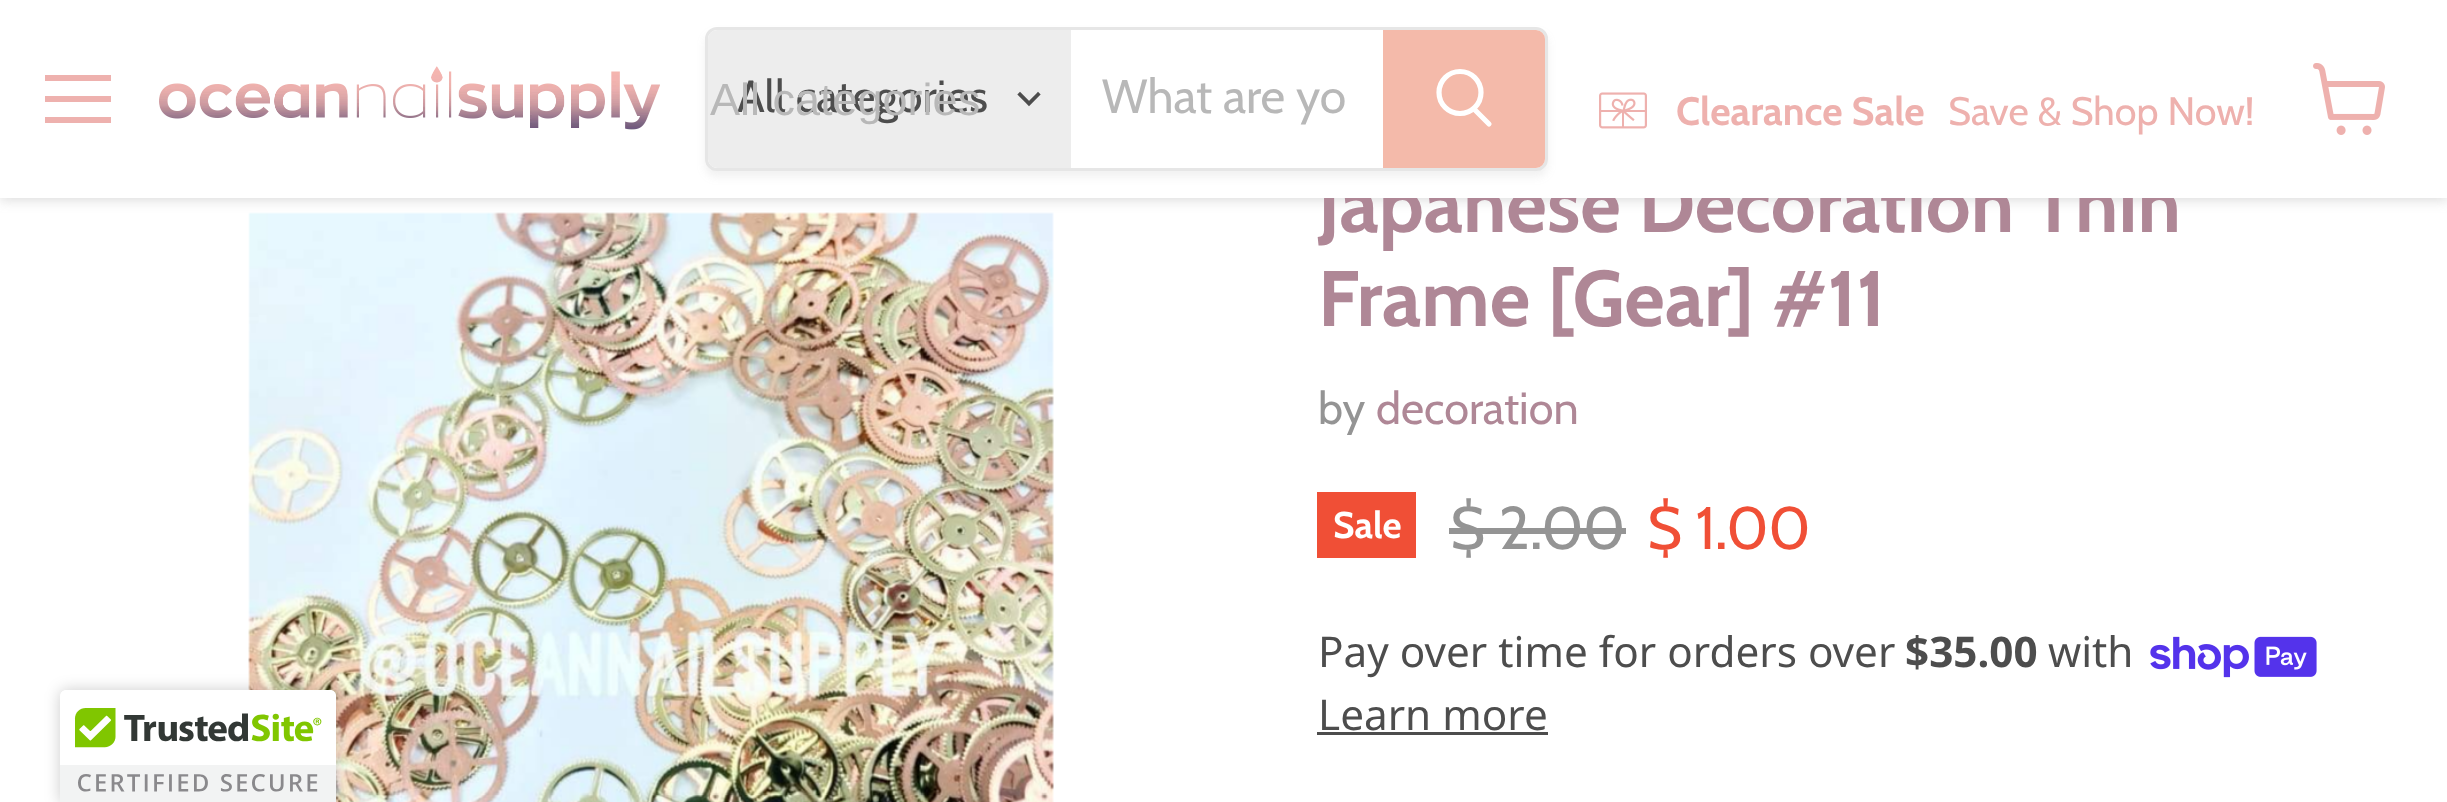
(async () => {
    const canvas = document.querySelector("canvas");
    canvas.width = 2447;
    canvas.height = 802;
    const context = canvas.getContext("2d");
    context.miterLimit = 4;
    context.fontKerning = "normal";
    function write(s, x, y, font, color) {
        context.font = font;
        context.fillStyle = color;
        context.fillText(s, x, y);
    }
    function block(x, y, w, h, color) {
        context.fillStyle = color;
        context.fillRect(x, y, w, h);
    }
    async function photo(src, x, y, w, h) {
        const img = new Image();
        img.src = src;
        await img.decode();
        context.drawImage(img, x, y, w, h);
    }

    block(0, 0, 2447, 802, "rgb(255, 255, 255)");
    await photo("media/5.png", 248, 212, 806, 590);
    context.fillStyle = "rgba(128, 128, 128, 0.25)";
    context.filter = "blur(6px)";
    context.beginPath();
    context.rect(0, 3, 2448, 198);
    context.fill();
    context.filter = "none";
    write("Japanese Decoration Thin", 1318, 232, "bold 78.75px Cabin", "rgb(175, 135, 150)");
    block(0, 0, 2447, 198, "rgb(255, 255, 255)");
    block(45, 75, 66, 6, "rgb(238, 177, 174)");
    block(45, 96, 66, 6, "rgb(238, 177, 174)");
    block(45, 117, 66, 6, "rgb(238, 177, 174)");
    await photo("media/1.png", 159, 66, 501, 64);
    context.save();
    context.beginPath();
    context.moveTo(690, 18);
    context.lineTo(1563, 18);
    context.lineTo(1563, 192);
    context.lineTo(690, 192);
    context.closePath();
    context.moveTo(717, 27);
    context.lineTo(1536, 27);
    context.bezierCurveTo(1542.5, 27, 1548, 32.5, 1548, 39);
    context.lineTo(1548, 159);
    context.bezierCurveTo(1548, 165.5, 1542.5, 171, 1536, 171);
    context.lineTo(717, 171);
    context.bezierCurveTo(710.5, 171, 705, 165.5, 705, 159);
    context.lineTo(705, 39);
    context.bezierCurveTo(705, 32.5, 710.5, 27, 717, 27);
    context.closePath();
    context.clip("evenodd");
    context.fillStyle = "rgba(128, 128, 128, 0.11)";
    context.filter = "blur(4.5px)";
    context.beginPath();
    context.roundRect(705, 33, 843, 144, 12);
    context.fill();
    context.filter = "none";
    context.restore();
    context.beginPath();
    context.roundRect(706.5, 28.5, 840, 141, 10.5);
    context.strokeStyle = "rgba(128, 128, 128, 0.2)";
    context.lineWidth = 3;
    context.stroke();
    context.fillStyle = "rgb(237, 237, 237)";
    context.beginPath();
    context.roundRect(708, 30, 363, 138, [9, 0, 0, 9]);
    context.fill();
    write("All categories", 737, 112, "45px Cabin", "rgb(77, 77, 77)");
    write("All categories", 710, 115, "45px Liberation Sans", "rgb(184, 184, 184)");
    context.beginPath();
    context.moveTo(1029, 103.5);
    context.lineTo(1038, 94.5);
    context.moveTo(1029, 103.5);
    context.lineTo(1020, 94.5);
    context.strokeStyle = "rgb(77, 77, 77)";
    context.lineWidth = 3.8;
    context.lineCap = "square";
    context.stroke();
    write("What are yo", 1102, 113, "48px Cabin", "rgb(184, 184, 184)");
    context.fillStyle = "rgb(244, 186, 170)";
    context.beginPath();
    context.roundRect(1384.5, 31.5, 159, 135, [0, 7.5, 7.5, 0]);
    context.fill();
    context.strokeStyle = "rgb(244, 186, 170)";
    context.lineWidth = 3;
    context.stroke();
    context.beginPath();
    context.moveTo(1489, 124);
    context.lineTo(1474.5, 109.5);
    context.strokeStyle = "rgb(255, 255, 255)";
    context.lineWidth = 5.2;
    context.lineCap = "round";
    context.stroke();
    context.beginPath();
    context.arc(1460, 92.5, 21, 0, Math.PI * 2);
    context.stroke();
    await photo("media/2.png", 1599, 92, 48, 37);
    write("Clearance Sale", 1676, 125, "bold 39.5px Cabin", "rgb(238, 177, 174)");
    write("Save & Shop Now!", 1948, 125, "39.5px Cabin", "rgb(238, 177, 174)");
    await photo("media/3.png", 2313, 63, 72, 72);
    context.fillStyle = "rgba(0, 0, 0, 0.2)";
    context.filter = "blur(7.5px)";
    context.beginPath();
    context.roundRect(60, 690, 276, 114, 6);
    context.fill();
    context.filter = "none";
    context.fillStyle = "rgb(255, 255, 255)";
    context.beginPath();
    context.moveTo(66, 690);
    context.lineTo(330, 690);
    context.bezierCurveTo(333.5, 690, 336, 692.5, 336, 696);
    context.lineTo(336, 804);
    context.lineTo(60, 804);
    context.lineTo(60, 696);
    context.bezierCurveTo(60, 692.5, 62.5, 690, 66, 690);
    context.closePath();
    context.fill();
    await photo("media/4.png", 60, 690, 276, 112);
    write("Frame [Gear] #11", 1318, 326, "bold 78.75px Cabin", "rgb(175, 135, 150)");
    write("by", 1318, 424, "45px Cabin", "rgb(148, 148, 148)");
    write("decoration", 1376, 424, "45px Cabin", "rgb(175, 135, 150)");
    block(1317, 492, 99, 66, "rgb(240, 79, 54)");
    write("Sale", 1333, 538, "bold 37px Cabin", "rgb(255, 255, 255)");
    write("$ 2.00", 1450, 549, "60px Cabin", "rgb(148, 148, 148)");
    block(1449, 528, 177, 6, "rgb(148, 148, 148)");
    write("$ 1.00", 1647, 549, "60px Cabin", "rgb(240, 79, 54)");
    write("Pay over time for orders over", 1318, 667, "42.25px Noto Sans", "rgb(77, 77, 77)");
    write("$35.00", 1905, 667, "bold 42.25px Noto Sans", "rgb(77, 77, 77)");
    write("with", 2048, 667, "42.25px Noto Sans", "rgb(77, 77, 77)");
    await photo("media/6.png", 2150, 636, 167, 42);
    write("Learn more", 1318, 730, "42.25px Noto Sans", "rgb(77, 77, 77)");
    block(1317, 732, 231, 3, "rgb(77, 77, 77)");
})();
